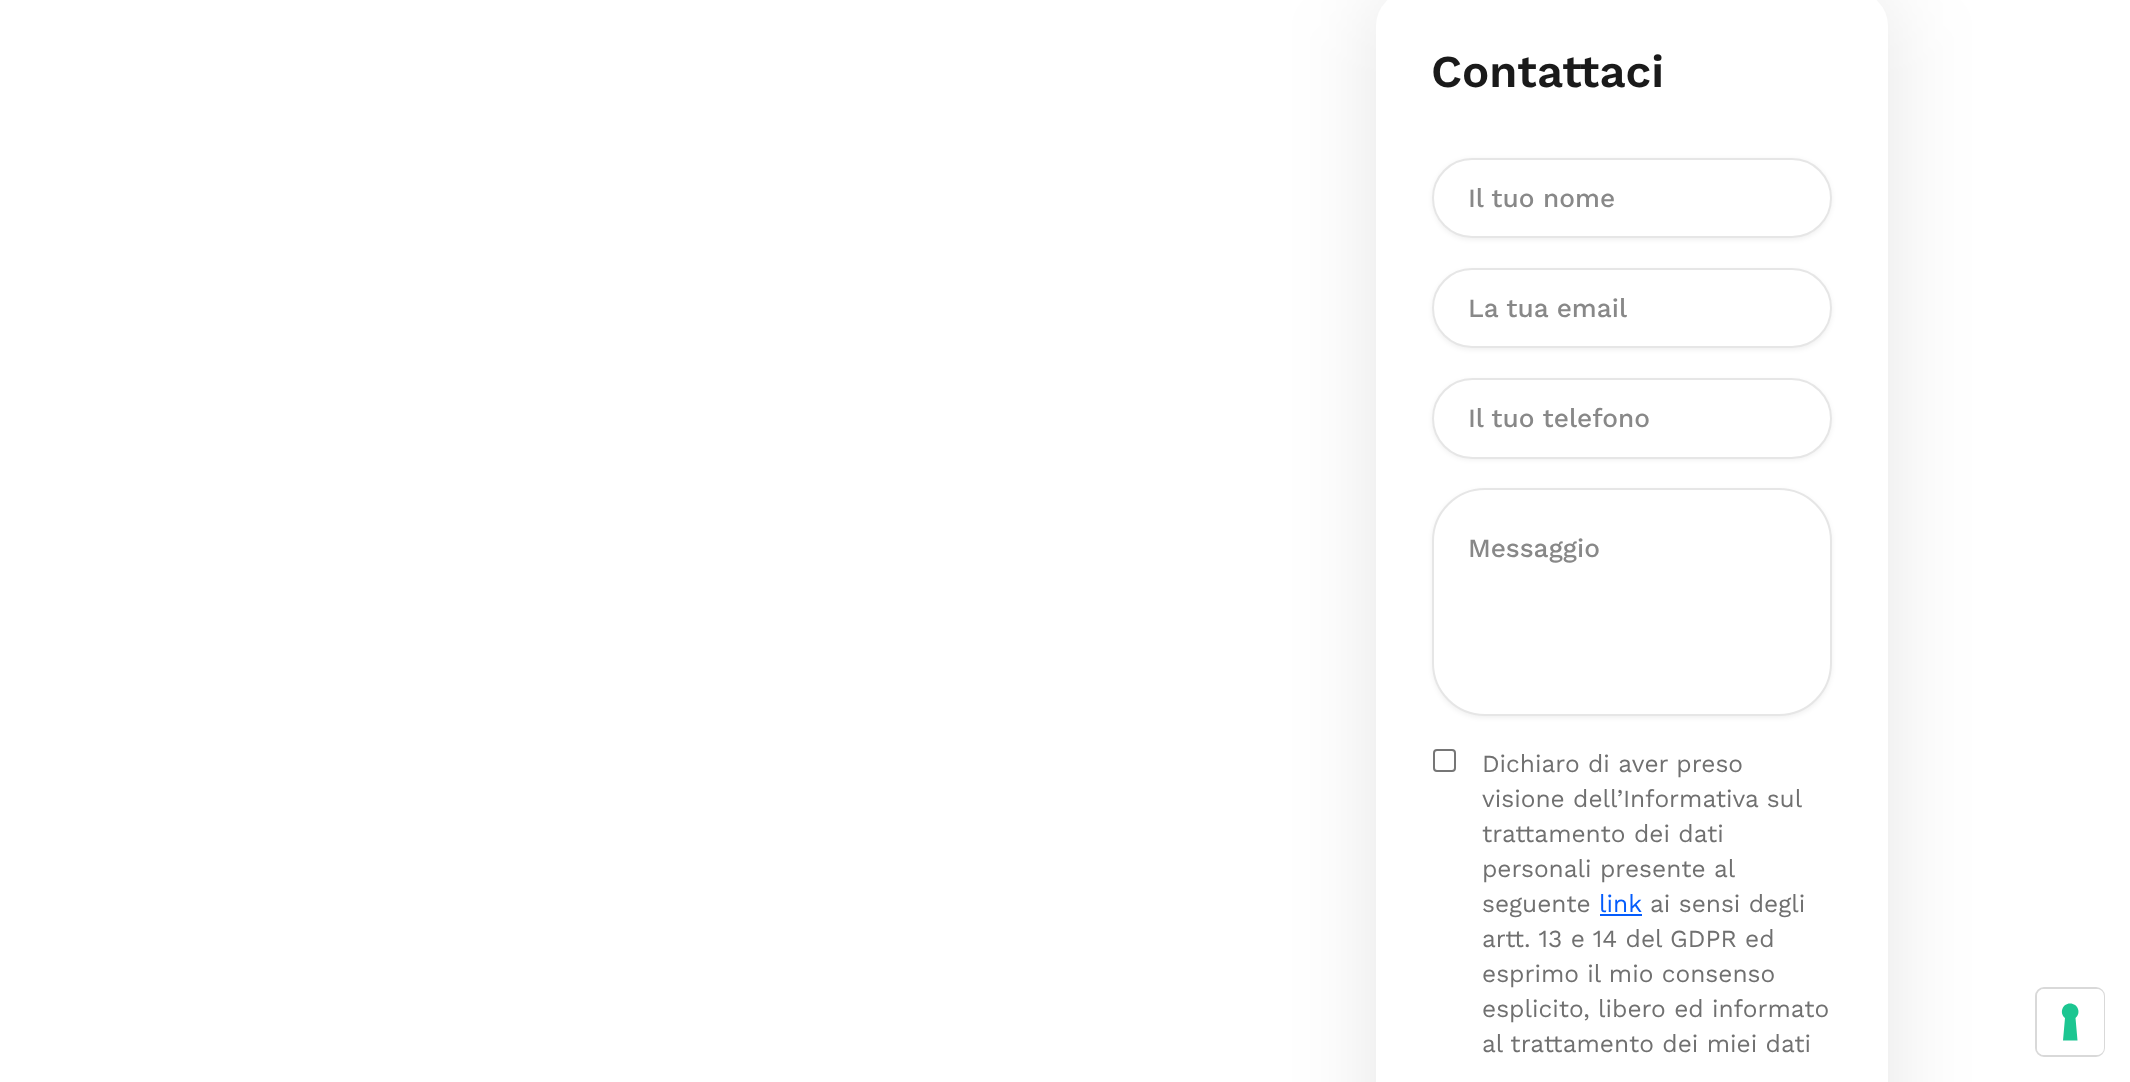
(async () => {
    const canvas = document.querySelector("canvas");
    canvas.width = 2130;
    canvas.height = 1082;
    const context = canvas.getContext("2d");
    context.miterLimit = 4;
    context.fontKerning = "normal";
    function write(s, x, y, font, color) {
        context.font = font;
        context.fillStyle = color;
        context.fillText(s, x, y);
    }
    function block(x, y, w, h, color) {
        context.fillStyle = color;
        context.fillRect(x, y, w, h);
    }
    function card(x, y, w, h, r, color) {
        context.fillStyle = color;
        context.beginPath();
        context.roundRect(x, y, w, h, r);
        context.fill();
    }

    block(0, 0, 2130, 1082, "rgb(255, 255, 255)");
    context.fillStyle = "rgba(0, 0, 0, 0.1)";
    context.filter = "blur(44px)";
    context.beginPath();
    context.roundRect(1376, -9, 512, 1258, 35);
    context.fill();
    context.filter = "none";
    card(1376, -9, 512, 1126, 35, "rgb(255, 255, 255)");
    write("Contattaci", 1431, 87, "600 45.5px Work Sans", "rgb(26, 26, 26)");
    context.fillStyle = "rgba(0, 0, 0, 0.06)";
    context.filter = "blur(2.5px)";
    context.beginPath();
    context.roundRect(1432, 159, 400, 81, 40.5);
    context.fill();
    context.filter = "none";
    context.fillStyle = "rgb(255, 255, 255)";
    context.beginPath();
    context.roundRect(1433, 159, 398, 78, 39);
    context.fill();
    context.strokeStyle = "rgb(230, 230, 230)";
    context.lineWidth = 2;
    context.stroke();
    write("Il tuo nome", 1468, 207, "500 26.25px Work Sans", "rgb(136, 136, 136)");
    context.fillStyle = "rgba(0, 0, 0, 0.06)";
    context.filter = "blur(2.5px)";
    context.beginPath();
    context.roundRect(1432, 270, 400, 80, 40);
    context.fill();
    context.filter = "none";
    context.fillStyle = "rgb(255, 255, 255)";
    context.beginPath();
    context.roundRect(1433, 269, 398, 78, 39);
    context.fill();
    context.stroke();
    write("La tua email", 1468, 317, "500 26.25px Work Sans", "rgb(136, 136, 136)");
    context.fillStyle = "rgba(0, 0, 0, 0.06)";
    context.filter = "blur(2.5px)";
    context.beginPath();
    context.roundRect(1432, 380, 400, 80, 40);
    context.fill();
    context.filter = "none";
    context.fillStyle = "rgb(255, 255, 255)";
    context.beginPath();
    context.roundRect(1433, 379, 398, 79, 39.5);
    context.fill();
    context.stroke();
    write("Il tuo telefono", 1468, 427, "500 26.25px Work Sans", "rgb(136, 136, 136)");
    context.fillStyle = "rgba(0, 0, 0, 0.06)";
    context.filter = "blur(2.5px)";
    context.beginPath();
    context.roundRect(1432, 490, 400, 228, 53);
    context.fill();
    context.filter = "none";
    context.fillStyle = "rgb(255, 255, 255)";
    context.beginPath();
    context.roundRect(1433, 489, 398, 226, 52);
    context.fill();
    context.stroke();
    write("Messaggio", 1468, 557, "500 26.25px Work Sans", "rgb(136, 136, 136)");
    context.beginPath();
    context.roundRect(1434, 750, 21, 21, 3);
    context.strokeStyle = "rgb(118, 118, 118)";
    context.stroke();
    write("Dichiaro di aver preso", 1482, 772, "24.5px Work Sans", "rgb(112, 112, 112)");
    write("visione dell’Informativa sul", 1482, 807, "24.5px Work Sans", "rgb(112, 112, 112)");
    write("trattamento dei dati", 1482, 842, "24.5px Work Sans", "rgb(112, 112, 112)");
    write("personali presente al", 1482, 877, "24.5px Work Sans", "rgb(112, 112, 112)");
    write("seguente", 1482, 912, "24.5px Work Sans", "rgb(112, 112, 112)");
    write("link", 1599, 912, "24.5px Work Sans", "rgb(4, 92, 252)");
    block(1600, 914, 42, 2, "rgb(4, 92, 252)");
    write("ai sensi degli", 1650, 912, "24.5px Work Sans", "rgb(112, 112, 112)");
    write("artt. 13 e 14 del GDPR ed", 1482, 947, "24.5px Work Sans", "rgb(112, 112, 112)");
    write("esprimo il mio consenso", 1482, 982, "24.5px Work Sans", "rgb(112, 112, 112)");
    write("esplicito, libero ed informato", 1482, 1017, "24.5px Work Sans", "rgb(112, 112, 112)");
    write("al trattamento dei miei dati", 1482, 1052, "24.5px Work Sans", "rgb(112, 112, 112)");
    context.beginPath();
    context.roundRect(2036, 988, 68, 68, 8);
    context.strokeStyle = "rgb(217, 217, 217)";
    context.stroke();
    card(2037, 989, 67, 66, 7, "rgb(255, 255, 255)");
    context.fillStyle = "rgb(28, 198, 145)";
    context.beginPath();
    context.moveTo(2070, 1003.5);
    context.bezierCurveTo(2078, 1003.5, 2081.5, 1013, 2075.5, 1018);
    context.lineTo(2077.5, 1040.5);
    context.lineTo(2063, 1040.5);
    context.lineTo(2065, 1018);
    context.bezierCurveTo(2059, 1013, 2062.5, 1003.5, 2070, 1003.5);
    context.closePath();
    context.fill("evenodd");
})();
